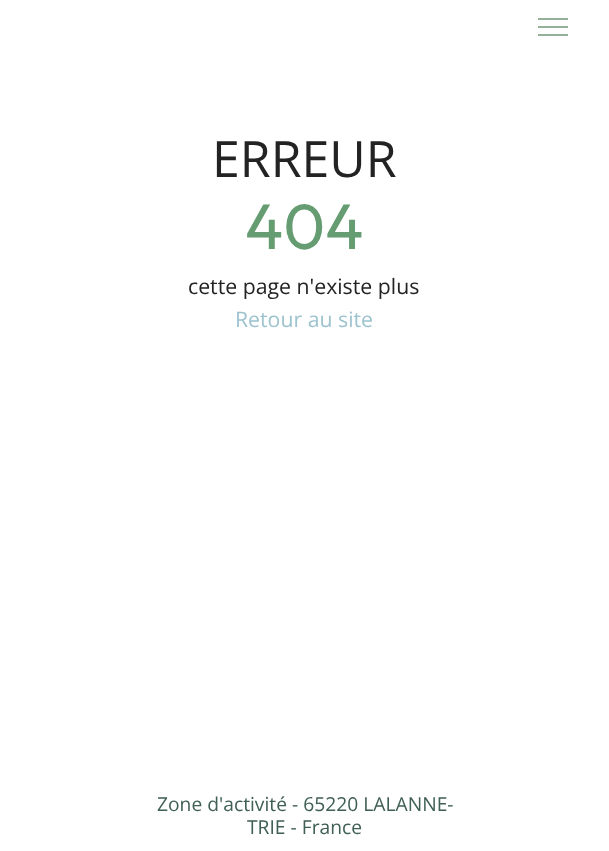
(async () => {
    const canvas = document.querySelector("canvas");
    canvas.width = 609;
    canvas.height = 851;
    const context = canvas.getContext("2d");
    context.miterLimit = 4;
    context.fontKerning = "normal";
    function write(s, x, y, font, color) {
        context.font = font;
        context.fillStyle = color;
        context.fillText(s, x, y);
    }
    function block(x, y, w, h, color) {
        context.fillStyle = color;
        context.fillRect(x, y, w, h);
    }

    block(0, 0, 609, 851, "rgb(255, 255, 255)");
    block(538, 18, 30, 2, "rgb(147, 177, 153)");
    block(538, 26, 30, 2, "rgb(147, 177, 153)");
    block(538, 34, 30, 2, "rgb(147, 177, 153)");
    write("ERREUR", 212, 177, "50px Open Sans", "rgb(35, 35, 35)");
    write("404", 245, 249, "64px Outfit", "rgb(102, 156, 113)");
    write("cette page n'existe plus", 188, 294, "21.25px Open Sans", "rgb(35, 35, 35)");
    write("Retour au site", 235, 327, "21.25px Open Sans", "rgb(157, 195, 207)");
    write("Zone d'activité - 65220 LALANNE-", 157, 811, "19.25px Open Sans", "rgb(64, 96, 84)");
    write("TRIE - France", 247, 834, "19.25px Open Sans", "rgb(64, 96, 84)");
})();
